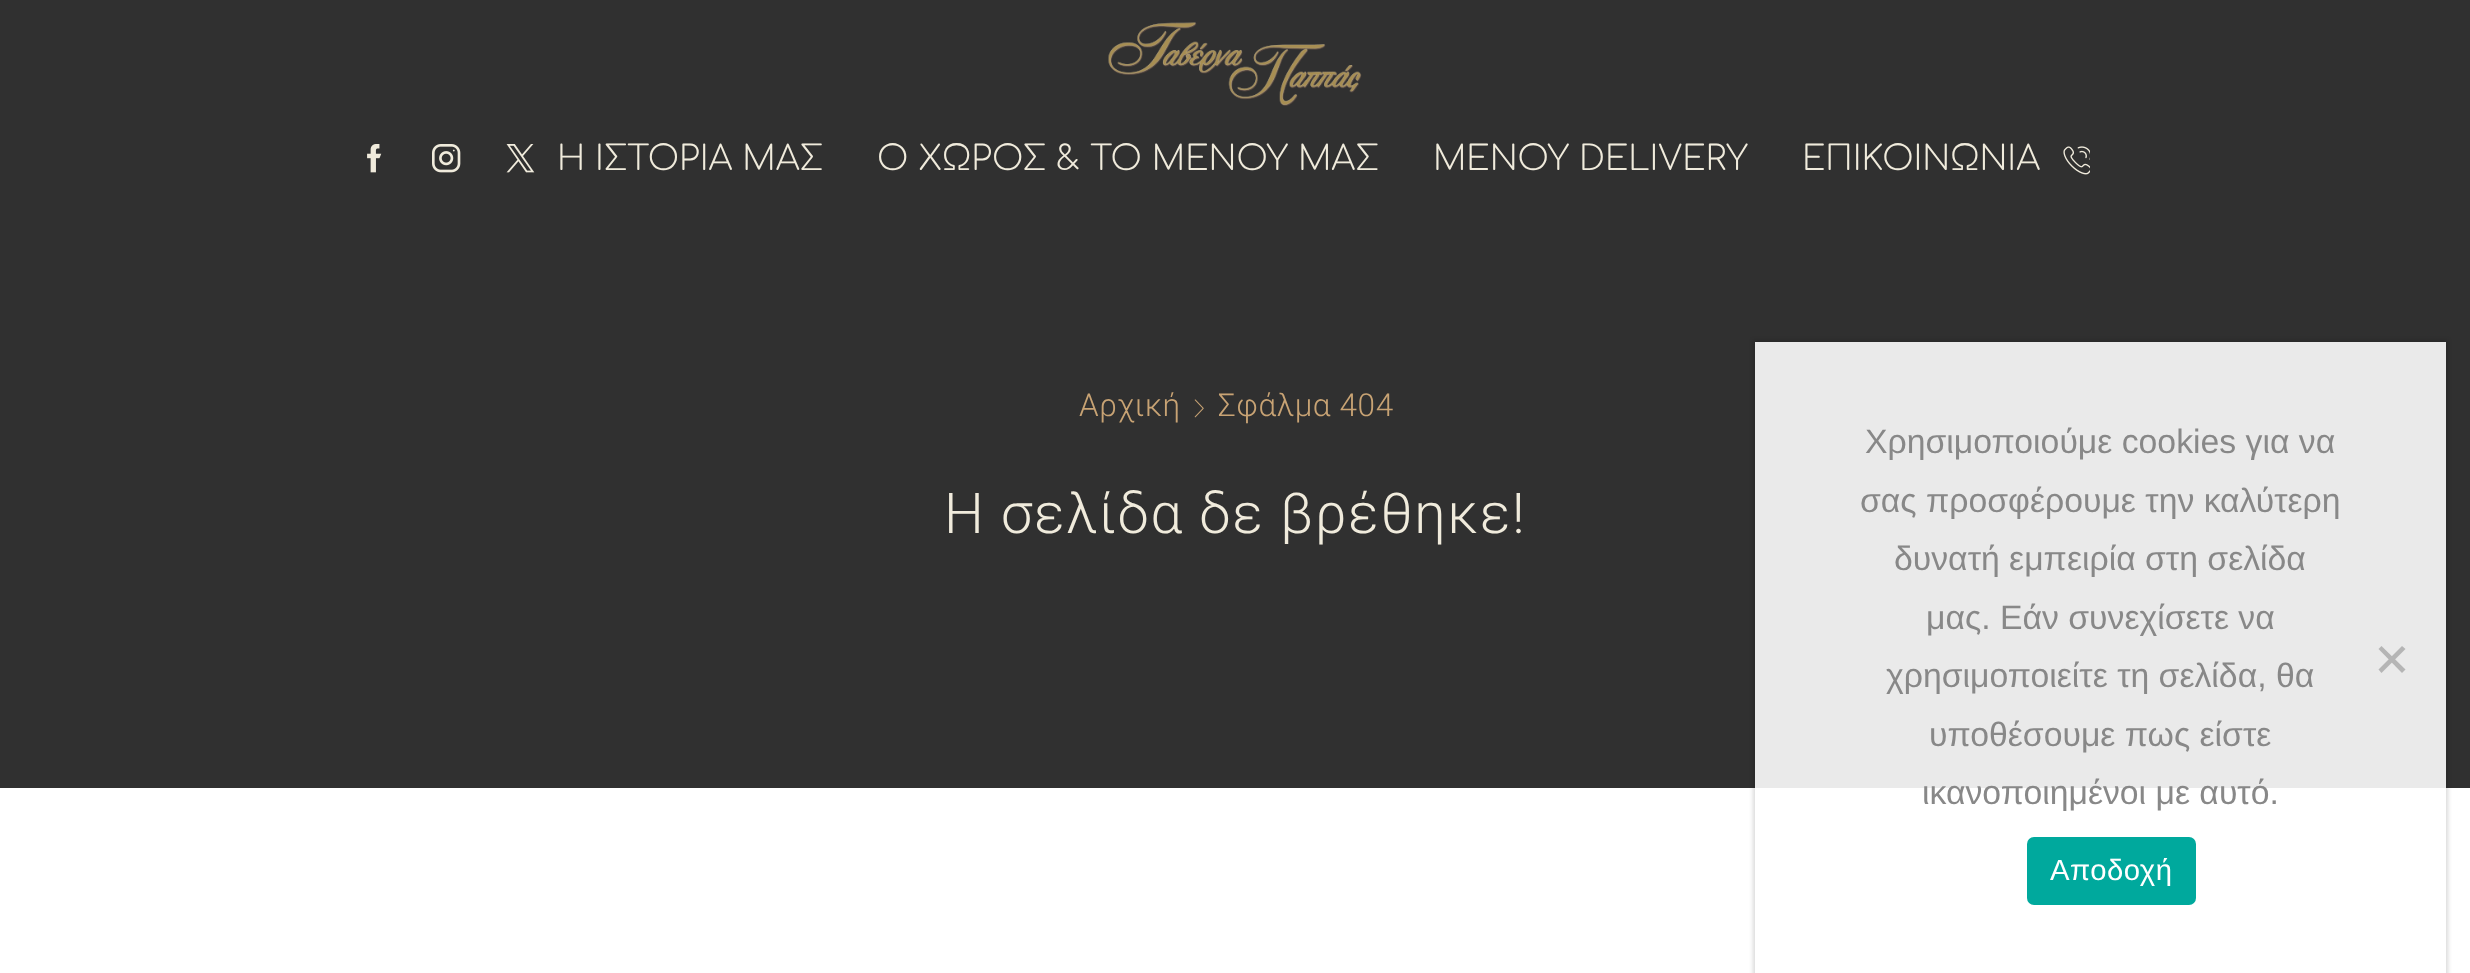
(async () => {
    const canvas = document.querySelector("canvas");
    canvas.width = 2470;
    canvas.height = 973;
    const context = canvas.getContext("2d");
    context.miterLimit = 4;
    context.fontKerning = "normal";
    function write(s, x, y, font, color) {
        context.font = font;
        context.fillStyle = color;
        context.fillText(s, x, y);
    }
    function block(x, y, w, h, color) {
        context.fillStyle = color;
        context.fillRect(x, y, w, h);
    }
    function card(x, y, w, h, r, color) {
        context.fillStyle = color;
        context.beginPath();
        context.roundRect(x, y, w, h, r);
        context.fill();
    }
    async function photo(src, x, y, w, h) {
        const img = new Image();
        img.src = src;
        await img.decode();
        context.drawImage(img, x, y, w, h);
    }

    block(0, 0, 2470, 973, "rgb(255, 255, 255)");
    block(0, 0, 2470, 788, "rgb(48, 48, 48)");
    await photo("media/1.png", 1108, 22, 254, 84);
    await photo("media/2.png", 367, 144, 15, 29);
    await photo("media/3.png", 432, 144, 29, 29);
    await photo("media/4.png", 506, 144, 29, 29);
    write("Η ΙΣΤΟΡΙΑ ΜΑΣ", 557, 170, "300 34px Comfortaa", "rgb(240, 235, 220)");
    write("Ο ΧΩΡΟΣ & ΤΟ ΜΕΝΟΥ ΜΑΣ", 877, 170, "300 34px Comfortaa", "rgb(240, 235, 220)");
    write("ΜΕΝΟΥ DELIVERY", 1433, 170, "300 34px Comfortaa", "rgb(240, 235, 220)");
    write("ΕΠΙΚΟΙΝΩΝΙΑ", 1802, 170, "300 34px Comfortaa", "rgb(240, 235, 220)");
    await photo("media/5.png", 2063, 146, 27, 29);
    context.letterSpacing = "0.6px";
    write("Αρχική", 1079, 416, "300 31.5px Roboto", "rgb(200, 163, 116)");
    await photo("media/6.png", 1194, 399, 10, 19);
    write("Σφάλμα 404", 1218, 416, "300 31.5px Roboto", "rgb(200, 163, 116)");
    context.letterSpacing = "1.7px";
    write("Η σελίδα δε βρέθηκε!", 944, 533, "300 56.25px Roboto", "rgb(240, 235, 220)");
    context.save();
    context.beginPath();
    context.moveTo(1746, 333);
    context.lineTo(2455, 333);
    context.lineTo(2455, 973);
    context.lineTo(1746, 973);
    context.closePath();
    context.moveTo(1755, 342);
    context.lineTo(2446, 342);
    context.lineTo(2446, 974);
    context.lineTo(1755, 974);
    context.closePath();
    context.clip("evenodd");
    context.fillStyle = "rgba(0, 0, 0, 0.15)";
    context.filter = "blur(2px)";
    context.beginPath();
    context.rect(1753, 340, 695, 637);
    context.fill();
    context.filter = "none";
    context.restore();
    block(1755, 342, 691, 631, "rgba(255, 255, 255, 0.9)");
    context.letterSpacing = "0px";
    write("Χρησιμοποιούμε cookies για να", 1865, 453, "33.75px Liberation Sans", "rgb(136, 136, 136)");
    write("σας προσφέρουμε την καλύτερη", 1860, 512, "33.75px Liberation Sans", "rgb(136, 136, 136)");
    write("δυνατή εμπειρία στη σελίδα", 1894, 570, "33.75px Liberation Sans", "rgb(136, 136, 136)");
    write("μας. Εάν συνεχίσετε να", 1926, 629, "33.75px Liberation Sans", "rgb(136, 136, 136)");
    write("χρησιμοποιείτε τη σελίδα, θα", 1886, 687, "33.75px Liberation Sans", "rgb(136, 136, 136)");
    write("υποθέσουμε πως είστε", 1929, 746, "33.75px Liberation Sans", "rgb(136, 136, 136)");
    write("ικανοποιημένοι με αυτό.", 1922, 804, "33.75px Liberation Sans", "rgb(136, 136, 136)");
    context.fillStyle = "rgb(181, 181, 181)";
    context.beginPath();
    context.moveTo(2402, 646);
    context.lineTo(2405.5, 649);
    context.lineTo(2381.5, 673);
    context.lineTo(2378.5, 669.5);
    context.closePath();
    context.fill();
    context.beginPath();
    context.moveTo(2378.5, 649);
    context.lineTo(2381.5, 646);
    context.lineTo(2405.5, 669.5);
    context.lineTo(2402, 673);
    context.closePath();
    context.fill();
    card(2027, 837, 169, 68, 7, "rgb(0, 169, 157)");
    context.letterSpacing = "0.5px";
    write("Αποδοχή", 2050, 880, "29.25px Liberation Sans", "rgb(255, 255, 255)");
})();
